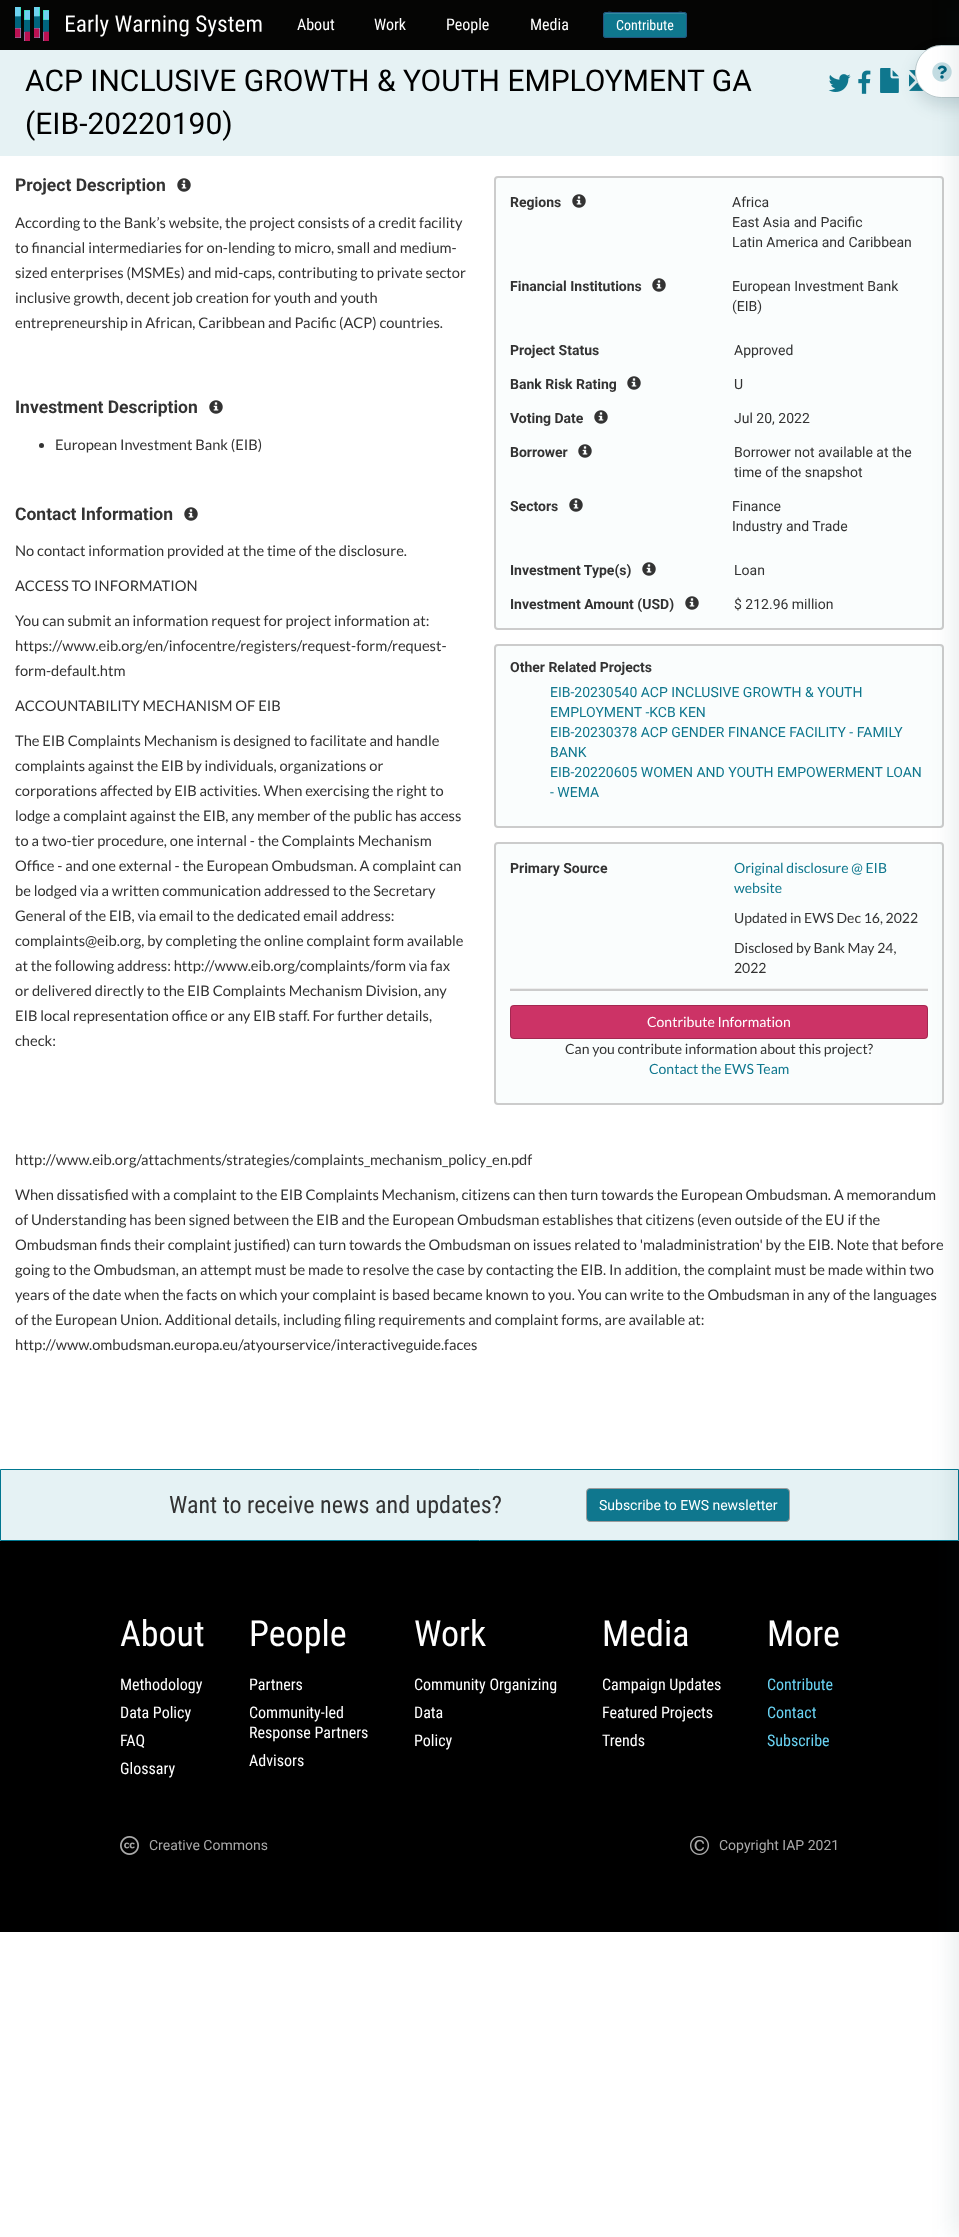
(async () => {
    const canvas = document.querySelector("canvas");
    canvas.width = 959;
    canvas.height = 2237;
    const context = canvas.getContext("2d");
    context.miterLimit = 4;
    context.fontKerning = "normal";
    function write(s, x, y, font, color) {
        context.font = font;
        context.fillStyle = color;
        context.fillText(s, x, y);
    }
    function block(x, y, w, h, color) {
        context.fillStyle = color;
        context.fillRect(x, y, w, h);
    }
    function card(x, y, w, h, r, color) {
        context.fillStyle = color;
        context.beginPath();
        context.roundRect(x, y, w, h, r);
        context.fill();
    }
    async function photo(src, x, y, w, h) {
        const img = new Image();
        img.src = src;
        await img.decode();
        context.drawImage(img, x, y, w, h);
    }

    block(0, 0, 959, 2237, "rgb(255, 255, 255)");
    block(0, 0, 959, 50, "rgb(5, 5, 4)");
    await photo("media/1.png", 15, 7, 247, 34);
    write("About", 297, 30, "16px Roboto Condensed", "rgb(255, 255, 255)");
    write("Work", 374, 30, "16px Roboto Condensed", "rgb(255, 255, 255)");
    write("People", 446, 30, "16px Roboto Condensed", "rgb(255, 255, 255)");
    write("Media", 530, 30, "16px Roboto Condensed", "rgb(255, 255, 255)");
    card(603, 12, 84, 26, 3, "rgb(15, 119, 142)");
    context.fillStyle = "rgb(51, 139, 159)";
    context.beginPath();
    context.moveTo(606, 14);
    context.lineTo(684, 14);
    context.bezierCurveTo(685, 14, 686, 15, 686, 16);
    context.bezierCurveTo(686, 9, 674, 13, 671, 13);
    context.lineTo(619, 13);
    context.bezierCurveTo(616, 13, 604, 9, 604, 16);
    context.bezierCurveTo(604, 15, 605, 14, 606, 14);
    context.closePath();
    context.fill();
    context.beginPath();
    context.roundRect(603.5, 12.5, 83, 25, 2.5);
    context.strokeStyle = "rgb(36, 85, 128)";
    context.stroke();
    write("Contribute", 616, 30, "14px Roboto Condensed", "rgb(255, 255, 255)");
    block(0, 50, 959, 106, "rgb(230, 242, 244)");
    await photo("media/5.png", 909, 70, 15, 21);
    await photo("media/4.png", 880, 68, 19, 25);
    context.fillStyle = "rgba(14, 56, 65, 0.15)";
    context.filter = "blur(8px)";
    context.beginPath();
    context.roundRect(915, 53, 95, 53, 26.5);
    context.fill();
    context.filter = "none";
    context.fillStyle = "rgb(255, 255, 255)";
    context.beginPath();
    context.moveTo(941.5, 45);
    context.lineTo(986, 45);
    context.lineTo(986, 98);
    context.lineTo(941.5, 98);
    context.bezierCurveTo(927, 98, 915, 86, 915, 71.5);
    context.bezierCurveTo(915, 57, 927, 45, 941.5, 45);
    context.closePath();
    context.fill();
    context.beginPath();
    context.moveTo(941.5, 45.5);
    context.lineTo(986.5, 45.5);
    context.lineTo(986.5, 97.5);
    context.lineTo(941.5, 97.5);
    context.bezierCurveTo(927, 97.5, 915.5, 86, 915.5, 71.5);
    context.bezierCurveTo(915.5, 57, 927, 45.5, 941.5, 45.5);
    context.closePath();
    context.strokeStyle = "rgba(19, 73, 84, 0.3)";
    context.stroke();
    await photo("media/6.png", 932, 62, 20, 20);
    context.fillStyle = "rgb(250, 253, 253)";
    context.beginPath();
    context.roundRect(495, 177, 448, 452, 3);
    context.fill();
    context.strokeStyle = "rgb(204, 204, 204)";
    context.lineWidth = 2;
    context.stroke();
    context.beginPath();
    context.roundRect(495, 645, 448, 182, 3);
    context.fill();
    context.stroke();
    context.beginPath();
    context.roundRect(495, 843, 448, 261, 3);
    context.fill();
    context.stroke();
    block(510, 989, 418, 2, "rgb(204, 204, 204)");
    block(510, 988, 418, 1, "rgb(238, 238, 238)");
    card(510, 1005, 418, 34, 4, "rgb(204, 51, 102)");
    context.beginPath();
    context.roundRect(510.5, 1005.5, 417, 33, 3.5);
    context.strokeStyle = "rgba(0, 0, 0, 0.2)";
    context.lineWidth = 1;
    context.stroke();
    context.fillStyle = "rgb(229, 242, 244)";
    context.beginPath();
    context.rect(0.5, 1469.5, 958, 71);
    context.fill();
    context.strokeStyle = "rgb(0, 119, 144)";
    context.stroke();
    block(0, 1541, 959, 391, "rgb(0, 0, 0)");
    context.fillStyle = "rgba(14, 56, 65, 0.1)";
    context.filter = "blur(12px)";
    context.beginPath();
    context.rect(955, 0, 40, 2237);
    context.fill();
    context.filter = "none";
    write("ACP INCLUSIVE GROWTH & YOUTH EMPLOYMENT GA", 25, 91, "30px Roboto", "rgb(0, 0, 0)");
    write("(EIB-20220190)", 25, 134, "30px Roboto", "rgb(0, 0, 0)");
    await photo("media/2.png", 828, 74, 23, 18);
    await photo("media/3.png", 858, 70, 13, 24);
    write("Project Description", 15, 191, "bold 17.5px Roboto", "rgb(51, 51, 51)");
    await photo("media/7.png", 177, 178, 14, 14);
    write("According to the Bank’s website, the project consists of a credit facility", 15, 228, "14.67px Lato", "rgb(51, 51, 51)");
    write("to financial intermediaries for on-lending to micro, small and medium-", 15, 253, "14.67px Lato", "rgb(51, 51, 51)");
    write("sized enterprises (MSMEs) and mid-caps, contributing to private sector", 15, 278, "14.67px Lato", "rgb(51, 51, 51)");
    write("inclusive growth, decent job creation for youth and youth", 15, 303, "14.67px Lato", "rgb(51, 51, 51)");
    write("entrepreneurship in African, Caribbean and Pacific (ACP) countries.", 15, 328, "14.67px Lato", "rgb(51, 51, 51)");
    write("Regions", 510, 207, "bold 14px Roboto", "rgb(51, 51, 51)");
    await photo("media/8.png", 572, 194, 14, 14);
    write("Africa", 732, 207, "14px Roboto", "rgb(51, 51, 51)");
    write("East Asia and Pacific", 732, 227, "14px Roboto", "rgb(51, 51, 51)");
    write("Latin America and Caribbean", 732, 247, "14px Roboto", "rgb(51, 51, 51)");
    write("Financial Institutions", 510, 291, "bold 14px Roboto", "rgb(51, 51, 51)");
    await photo("media/8.png", 652, 278, 14, 14);
    write("European Investment Bank", 732, 291, "14px Roboto", "rgb(51, 51, 51)");
    write("(EIB)", 732, 311, "14px Roboto", "rgb(51, 51, 51)");
    write("Project Status", 510, 355, "bold 14px Roboto", "rgb(51, 51, 51)");
    write("Approved", 734, 355, "14px Roboto", "rgb(51, 51, 51)");
    write("Bank Risk Rating", 510, 389, "bold 14px Roboto", "rgb(51, 51, 51)");
    await photo("media/8.png", 627, 376, 14, 14);
    write("U", 734, 389, "14px Roboto", "rgb(51, 51, 51)");
    write("Voting Date", 510, 423, "bold 14px Roboto", "rgb(51, 51, 51)");
    await photo("media/8.png", 594, 410, 14, 14);
    write("Jul 20, 2022", 734, 423, "14px Roboto", "rgb(51, 51, 51)");
    write("Borrower", 510, 457, "bold 14px Roboto", "rgb(51, 51, 51)");
    await photo("media/8.png", 578, 444, 14, 14);
    write("Borrower not available at the", 734, 457, "14px Roboto", "rgb(51, 51, 51)");
    write("time of the snapshot", 734, 477, "14px Roboto", "rgb(51, 51, 51)");
    write("Sectors", 510, 511, "bold 14px Roboto", "rgb(51, 51, 51)");
    await photo("media/8.png", 569, 498, 14, 14);
    write("Finance", 732, 511, "14px Roboto", "rgb(51, 51, 51)");
    write("Industry and Trade", 732, 531, "14px Roboto", "rgb(51, 51, 51)");
    write("Investment Type(s)", 510, 575, "bold 14px Roboto", "rgb(51, 51, 51)");
    await photo("media/8.png", 642, 562, 14, 14);
    write("Loan", 734, 575, "14px Roboto", "rgb(51, 51, 51)");
    write("Investment Amount (USD)", 510, 609, "bold 14px Roboto", "rgb(51, 51, 51)");
    await photo("media/8.png", 685, 596, 14, 14);
    write("$ 212.96 million", 734, 609, "14px Roboto", "rgb(51, 51, 51)");
    write("Other Related Projects", 510, 672, "bold 14px Roboto", "rgb(51, 51, 51)");
    write("EIB-20230540 ACP INCLUSIVE GROWTH & YOUTH", 550, 697, "14px Roboto", "rgb(15, 119, 142)");
    write("EMPLOYMENT -KCB KEN", 550, 717, "14px Roboto", "rgb(15, 119, 142)");
    write("EIB-20230378 ACP GENDER FINANCE FACILITY - FAMILY", 550, 737, "14px Roboto", "rgb(15, 119, 142)");
    write("BANK", 550, 757, "14px Roboto", "rgb(15, 119, 142)");
    write("EIB-20220605 WOMEN AND YOUTH EMPOWERMENT LOAN", 550, 777, "14px Roboto", "rgb(15, 119, 142)");
    write("- WEMA", 550, 797, "14px Roboto", "rgb(15, 119, 142)");
    write("Primary Source", 510, 873, "bold 14px Roboto", "rgb(51, 51, 51)");
    write("Original disclosure @ EIB", 734, 873, "14px Lato", "rgb(15, 119, 142)");
    write("website", 734, 893, "14px Lato", "rgb(15, 119, 142)");
    write("Updated in EWS Dec 16, 2022", 734, 923, "14px Lato", "rgb(51, 51, 51)");
    write("Disclosed by Bank May 24,", 734, 953, "14px Lato", "rgb(51, 51, 51)");
    write("2022", 734, 973, "14px Lato", "rgb(51, 51, 51)");
    write("Contribute Information", 647, 1027, "14px Lato", "rgb(255, 255, 255)");
    write("Can you contribute information about this project?", 565, 1054, "14px Lato", "rgb(51, 51, 51)");
    write("Contact the EWS Team", 649, 1074, "14px Lato", "rgb(15, 119, 142)");
    write("Investment Description", 15, 413, "bold 17.5px Roboto", "rgb(51, 51, 51)");
    await photo("media/7.png", 209, 400, 14, 14);
    context.beginPath();
    context.arc(41.5, 445.5, 2.5, 0, Math.PI * 2);
    context.fill();
    write("European Investment Bank (EIB)", 55, 450, "14.67px Lato", "rgb(51, 51, 51)");
    write("Contact Information", 15, 520, "bold 17.5px Roboto", "rgb(51, 51, 51)");
    await photo("media/7.png", 184, 507, 14, 14);
    write("No contact information provided at the time of the disclosure.", 15, 556, "14.67px Lato", "rgb(51, 51, 51)");
    write("ACCESS TO INFORMATION", 15, 591, "14.67px Lato", "rgb(51, 51, 51)");
    write("You can submit an information request for project information at:", 15, 626, "14.67px Lato", "rgb(51, 51, 51)");
    write("https://www.eib.org/en/infocentre/registers/request-form/request-", 15, 651, "14.67px Lato", "rgb(51, 51, 51)");
    write("form-default.htm", 15, 676, "14.67px Lato", "rgb(51, 51, 51)");
    write("ACCOUNTABILITY MECHANISM OF EIB", 15, 711, "14.67px Lato", "rgb(51, 51, 51)");
    write("The EIB Complaints Mechanism is designed to facilitate and handle", 15, 746, "14.67px Lato", "rgb(51, 51, 51)");
    write("complaints against the EIB by individuals, organizations or", 15, 771, "14.67px Lato", "rgb(51, 51, 51)");
    write("corporations affected by EIB activities. When exercising the right to", 15, 796, "14.67px Lato", "rgb(51, 51, 51)");
    write("lodge a complaint against the EIB, any member of the public has access", 15, 821, "14.67px Lato", "rgb(51, 51, 51)");
    write("to a two-tier procedure, one internal - the Complaints Mechanism", 15, 846, "14.67px Lato", "rgb(51, 51, 51)");
    write("Office - and one external - the European Ombudsman. A complaint can", 15, 871, "14.67px Lato", "rgb(51, 51, 51)");
    write("be lodged via a written communication addressed to the Secretary", 15, 896, "14.67px Lato", "rgb(51, 51, 51)");
    write("General of the EIB, via email to the dedicated email address:", 15, 921, "14.67px Lato", "rgb(51, 51, 51)");
    write("complaints@eib.org, by completing the online complaint form available", 15, 946, "14.67px Lato", "rgb(51, 51, 51)");
    write("at the following address: http://www.eib.org/complaints/form via fax", 15, 971, "14.67px Lato", "rgb(51, 51, 51)");
    write("or delivered directly to the EIB Complaints Mechanism Division, any", 15, 996, "14.67px Lato", "rgb(51, 51, 51)");
    write("EIB local representation office or any EIB staff. For further details,", 15, 1021, "14.67px Lato", "rgb(51, 51, 51)");
    write("check:", 15, 1046, "14.67px Lato", "rgb(51, 51, 51)");
    write("http://www.eib.org/attachments/strategies/complaints_mechanism_policy_en.pdf", 15, 1165, "14.67px Lato", "rgb(51, 51, 51)");
    write("When dissatisfied with a complaint to the EIB Complaints Mechanism, citizens can then turn towards the European Ombudsman. A memorandum", 15, 1200, "14.67px Lato", "rgb(51, 51, 51)");
    write("of Understanding has been signed between the EIB and the European Ombudsman establishes that citizens (even outside of the EU if the", 15, 1225, "14.67px Lato", "rgb(51, 51, 51)");
    write("Ombudsman finds their complaint justified) can turn towards the Ombudsman on issues related to 'maladministration' by the EIB. Note that before", 15, 1250, "14.67px Lato", "rgb(51, 51, 51)");
    write("going to the Ombudsman, an attempt must be made to resolve the case by contacting the EIB. In addition, the complaint must be made within two", 15, 1275, "14.67px Lato", "rgb(51, 51, 51)");
    write("years of the date when the facts on which your complaint is based became known to you. You can write to the Ombudsman in any of the languages", 15, 1300, "14.67px Lato", "rgb(51, 51, 51)");
    write("of the European Union. Additional details, including filing requirements and complaint forms, are available at:", 15, 1325, "14.67px Lato", "rgb(51, 51, 51)");
    write("http://www.ombudsman.europa.eu/atyourservice/interactiveguide.faces", 15, 1350, "14.67px Lato", "rgb(51, 51, 51)");
    write("Want to receive news and updates?", 169, 1513, "24px Roboto Condensed", "rgb(51, 51, 51)");
    context.fillStyle = "rgb(15, 119, 142)";
    context.beginPath();
    context.roundRect(586.5, 1488.5, 203, 33, 3.5);
    context.fill();
    context.strokeStyle = "rgb(156, 156, 156)";
    context.stroke();
    write("Subscribe to EWS newsletter", 599, 1510, "14px Roboto", "rgb(255, 255, 255)");
    write("About", 120, 1646, "36px Roboto Condensed", "rgb(255, 255, 255)");
    write("Methodology", 120, 1690, "16px Roboto Condensed", "rgb(255, 255, 255)");
    write("Data Policy", 120, 1718, "16px Roboto Condensed", "rgb(255, 255, 255)");
    write("FAQ", 120, 1746, "16px Roboto Condensed", "rgb(255, 255, 255)");
    write("Glossary", 120, 1774, "16px Roboto Condensed", "rgb(255, 255, 255)");
    write("People", 249, 1646, "36px Roboto Condensed", "rgb(255, 255, 255)");
    write("Partners", 249, 1690, "16px Roboto Condensed", "rgb(255, 255, 255)");
    write("Community-led", 249, 1718, "16px Roboto Condensed", "rgb(255, 255, 255)");
    write("Response Partners", 249, 1738, "16px Roboto Condensed", "rgb(255, 255, 255)");
    write("Advisors", 249, 1766, "16px Roboto Condensed", "rgb(255, 255, 255)");
    write("Work", 414, 1646, "36px Roboto Condensed", "rgb(255, 255, 255)");
    write("Community Organizing", 414, 1690, "16px Roboto Condensed", "rgb(255, 255, 255)");
    write("Data", 414, 1718, "16px Roboto Condensed", "rgb(255, 255, 255)");
    write("Policy", 414, 1746, "16px Roboto Condensed", "rgb(255, 255, 255)");
    write("Media", 602, 1646, "36px Roboto Condensed", "rgb(255, 255, 255)");
    write("Campaign Updates", 602, 1690, "16px Roboto Condensed", "rgb(255, 255, 255)");
    write("Featured Projects", 602, 1718, "16px Roboto Condensed", "rgb(255, 255, 255)");
    write("Trends", 602, 1746, "16px Roboto Condensed", "rgb(255, 255, 255)");
    write("More", 767, 1646, "36px Roboto Condensed", "rgb(255, 255, 255)");
    write("Contribute", 767, 1690, "16px Roboto Condensed", "rgb(105, 210, 242)");
    write("Contact", 767, 1718, "16px Roboto Condensed", "rgb(105, 210, 242)");
    write("Subscribe", 767, 1746, "16px Roboto Condensed", "rgb(105, 210, 242)");
    await photo("media/9.png", 120, 1836, 19, 19);
    write("Creative Commons", 149, 1850, "14px Roboto", "rgb(170, 170, 170)");
    await photo("media/10.png", 690, 1836, 19, 19);
    write("Copyright IAP 2021", 719, 1850, "14px Roboto", "rgb(170, 170, 170)");
})();
